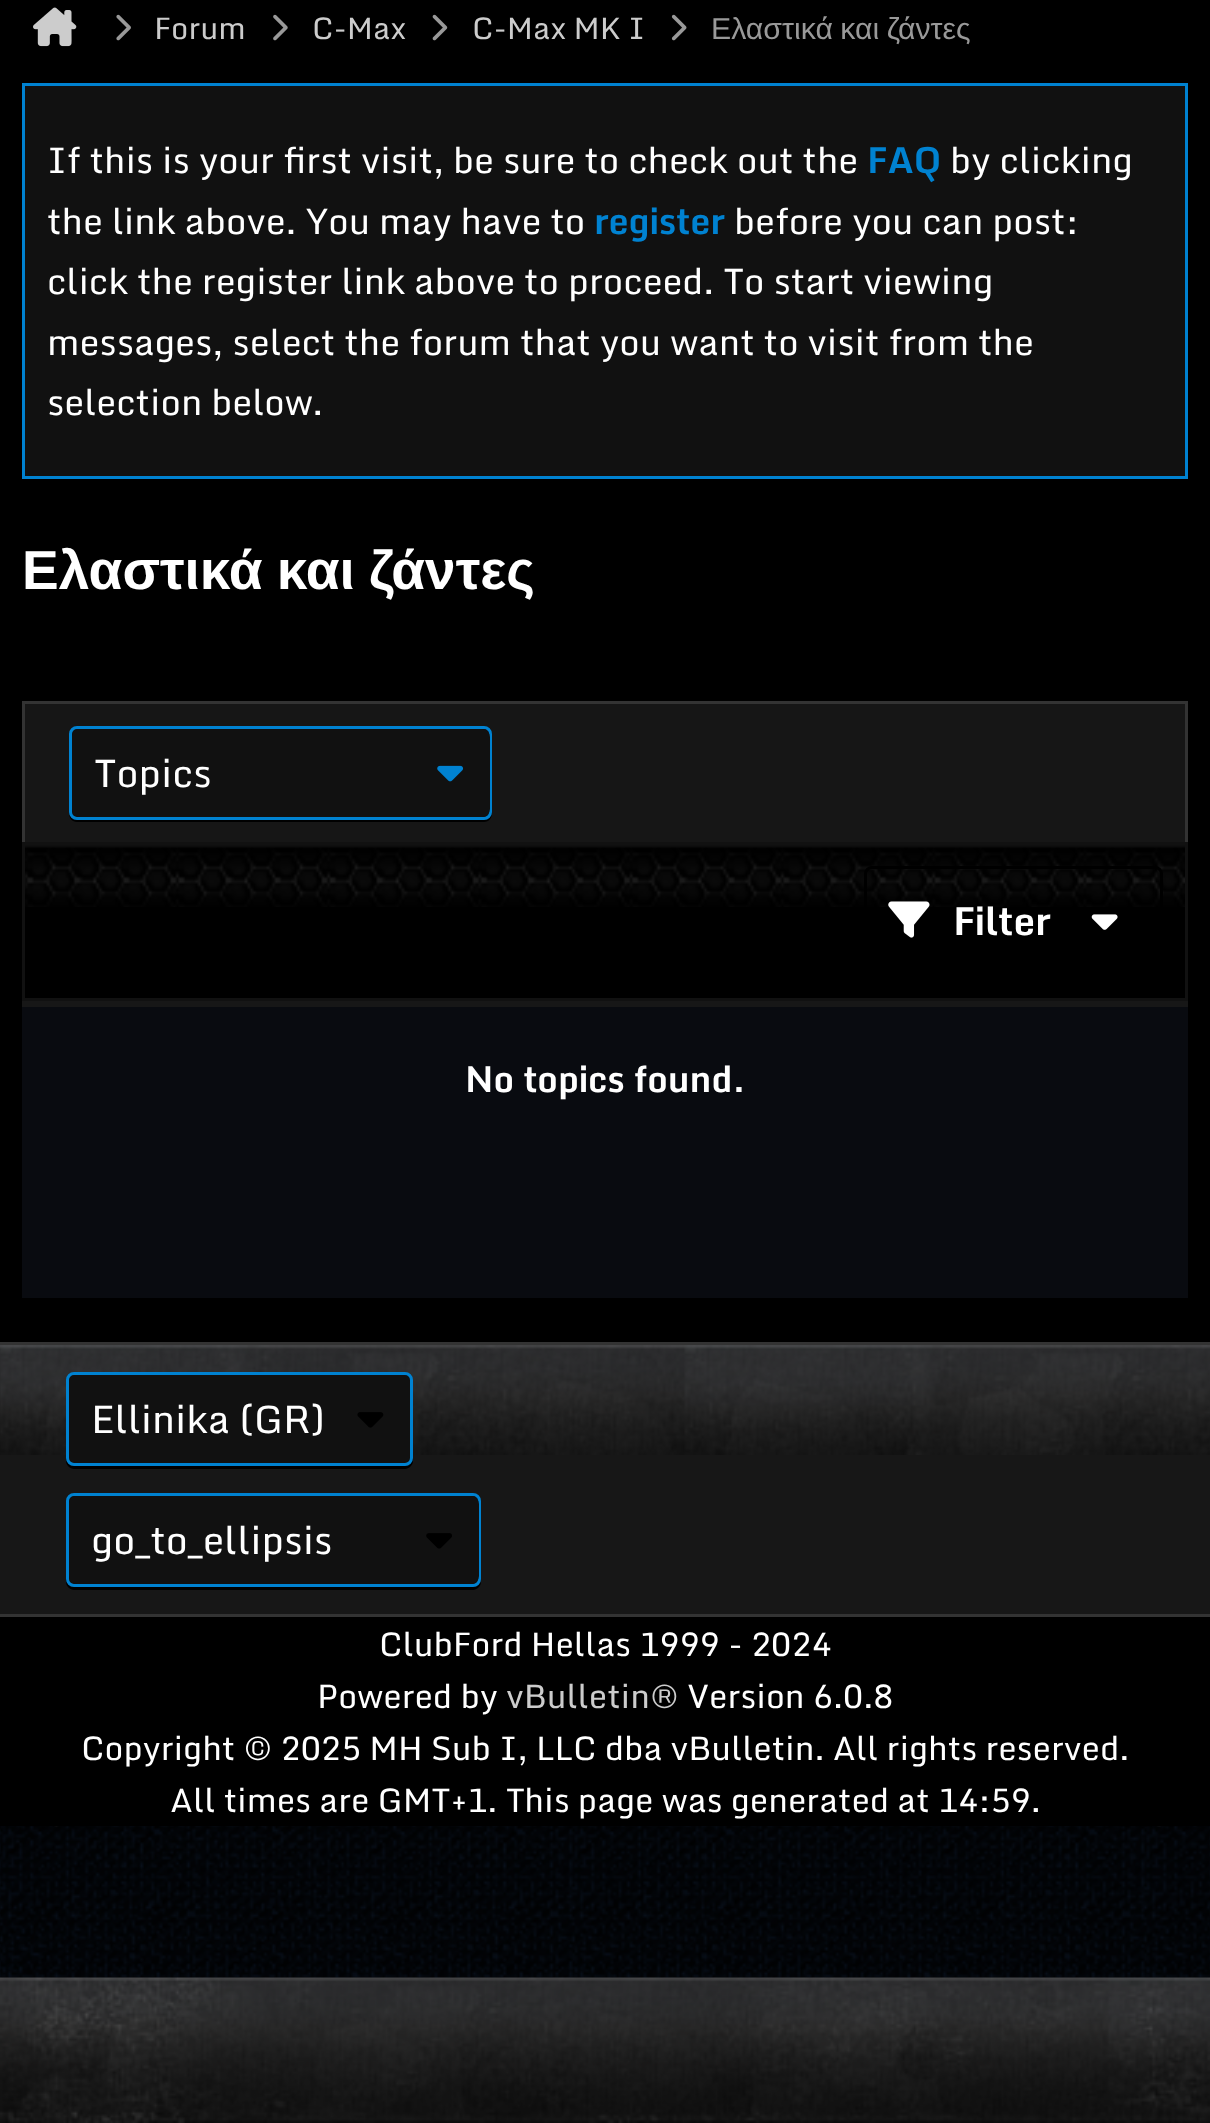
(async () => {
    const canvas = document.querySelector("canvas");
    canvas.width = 1210;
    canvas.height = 2123;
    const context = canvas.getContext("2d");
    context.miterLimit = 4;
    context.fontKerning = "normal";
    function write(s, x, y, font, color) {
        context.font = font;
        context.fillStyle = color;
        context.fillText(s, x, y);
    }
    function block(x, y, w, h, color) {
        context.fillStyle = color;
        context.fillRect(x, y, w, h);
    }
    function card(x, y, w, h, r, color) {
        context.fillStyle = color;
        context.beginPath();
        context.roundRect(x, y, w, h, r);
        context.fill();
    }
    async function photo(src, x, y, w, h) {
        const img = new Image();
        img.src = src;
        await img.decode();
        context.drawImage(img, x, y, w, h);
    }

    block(0, 0, 1210, 2123, "rgb(255, 255, 255)");
    await photo("media/1.png", 0, 1826, 1210, 152);
    await photo("media/2.png", 3, 1826, 96, 1);
    await photo("media/3.png", 1111, 1826, 99, 1);
    block(0, 0, 1210, 1342, "rgb(0, 0, 0)");
    await photo("media/4.png", 33, 7, 44, 40);
    await photo("media/5.png", 116, 14, 15, 27);
    write("Forum", 154, 39, "30.25px Monda", "rgb(204, 204, 204)");
    await photo("media/6.png", 273, 14, 15, 27);
    write("C-Max", 312, 39, "30.25px Monda", "rgb(204, 204, 204)");
    await photo("media/7.png", 432, 14, 16, 27);
    write("C-Max MK I", 472, 39, "30.25px Monda", "rgb(204, 204, 204)");
    await photo("media/8.png", 671, 14, 16, 27);
    context.wordSpacing = "-1px";
    write("Ελαστικά και ζάντες", 711, 39, "30.25px Liberation Sans", "rgb(153, 153, 153)");
    context.fillStyle = "rgb(17, 17, 17)";
    context.beginPath();
    context.rect(23.5, 84.5, 1163, 393);
    context.fill();
    context.strokeStyle = "rgb(0, 130, 209)";
    context.lineWidth = 3;
    context.stroke();
    context.wordSpacing = "0px";
    write("If this is your first visit, be sure to check out the", 47, 173, "35.75px Monda", "rgb(255, 255, 255)");
    write("FAQ", 867, 173, "bold 35.75px Monda", "rgb(0, 130, 209)");
    write("by clicking", 950, 173, "35.75px Monda", "rgb(255, 255, 255)");
    write("the link above. You may have to", 47, 234, "35.75px Monda", "rgb(255, 255, 255)");
    write("register", 594, 234, "bold 35.75px Monda", "rgb(0, 130, 209)");
    write("before you can post:", 734, 234, "35.75px Monda", "rgb(255, 255, 255)");
    write("click the register link above to proceed. To start viewing", 47, 294, "35.75px Monda", "rgb(255, 255, 255)");
    write("messages, select the forum that you want to visit from the", 47, 355, "35.75px Monda", "rgb(255, 255, 255)");
    write("selection below.", 47, 415, "35.75px Monda", "rgb(255, 255, 255)");
    context.wordSpacing = "-1px";
    write("Ελαστικά και ζάντες", 22, 589, "bold 55px Liberation Sans", "rgb(255, 255, 255)");
    block(25, 704, 1160, 138, "rgb(22, 22, 22)");
    block(22, 701, 1166, 3, "rgb(51, 51, 51)");
    block(1185, 701, 3, 141, "rgb(51, 51, 51)");
    block(22, 701, 3, 141, "rgb(51, 51, 51)");
    context.fillStyle = "rgb(0, 0, 0)";
    context.beginPath();
    context.moveTo(69, 813);
    context.bezierCurveTo(69, 818, 72, 822, 77, 822);
    context.lineTo(484, 822);
    context.bezierCurveTo(489, 822, 492, 818, 492, 813);
    context.bezierCurveTo(491, 817, 488, 820, 484, 820);
    context.lineTo(77, 820);
    context.bezierCurveTo(73, 820, 70, 817, 69, 813);
    context.closePath();
    context.fill();
    context.fillStyle = "rgb(17, 17, 17)";
    context.beginPath();
    context.roundRect(70.5, 727.5, 420, 91, 6.5);
    context.fill();
    context.stroke();
    card(72, 729, 418, 88, 8, "rgb(17, 17, 17)");
    context.wordSpacing = "0px";
    write("Topics", 94, 787, "38.5px Monda", "rgb(255, 255, 255)");
    await photo("media/9.png", 437, 765, 27, 17);
    await photo("media/10.png", 25, 845, 1160, 62);
    context.strokeStyle = "rgb(17, 17, 17)";
    context.strokeRect(23.5, 843.5, 1163, 156);
    context.beginPath();
    context.roundRect(865.5, 867.5, 296, 107, 6.5);
    context.strokeStyle = "rgb(0, 0, 0)";
    context.stroke();
    await photo("media/11.png", 888, 901, 42, 37);
    write("Filter", 953, 935, "bold 38.5px Monda", "rgb(255, 255, 255)");
    await photo("media/12.png", 1091, 914, 27, 16);
    block(22, 1001, 1166, 6, "rgb(23, 23, 23)");
    block(22, 1007, 1166, 291, "rgb(9, 11, 16)");
    write("No topics found.", 465, 1092, "bold 35.75px Monda", "rgb(255, 255, 255)");
    block(0, 1455, 1210, 159, "rgb(23, 23, 23)");
    await photo("media/13.png", 0, 1345, 1210, 110);
    block(0, 1342, 1210, 3, "rgb(51, 51, 51)");
    block(0, 1614, 1210, 3, "rgb(51, 51, 51)");
    context.fillStyle = "rgb(0, 0, 0)";
    context.beginPath();
    context.moveTo(66, 1458);
    context.lineTo(66, 1461);
    context.bezierCurveTo(66, 1465, 70, 1469, 74, 1469);
    context.lineTo(405, 1469);
    context.bezierCurveTo(409, 1469, 413, 1465, 413, 1461);
    context.lineTo(413, 1383);
    context.lineTo(412, 1380);
    context.lineTo(412, 1458);
    context.bezierCurveTo(412, 1462, 409, 1466, 404, 1466);
    context.lineTo(74, 1466);
    context.bezierCurveTo(70, 1466, 66, 1462, 66, 1458);
    context.closePath();
    context.fill();
    context.fillStyle = "rgb(17, 17, 17)";
    context.beginPath();
    context.roundRect(67.5, 1373.5, 344, 91, 6.5);
    context.fill();
    context.strokeStyle = "rgb(0, 130, 209)";
    context.stroke();
    write("Ellinika (GR)", 91, 1433, "38.5px Monda", "rgb(255, 255, 255)");
    await photo("media/14.png", 357, 1412, 27, 16);
    context.fillStyle = "rgb(0, 0, 0)";
    context.beginPath();
    context.moveTo(66, 1578);
    context.lineTo(66, 1582);
    context.bezierCurveTo(66, 1586, 70, 1590, 74, 1590);
    context.lineTo(473, 1590);
    context.bezierCurveTo(477, 1590, 481, 1586, 481, 1582);
    context.lineTo(481, 1581);
    context.bezierCurveTo(480, 1584, 477, 1587, 473, 1587);
    context.lineTo(74, 1587);
    context.bezierCurveTo(70, 1587, 66, 1583, 66, 1578);
    context.closePath();
    context.fill();
    context.fillStyle = "rgb(17, 17, 17)";
    context.beginPath();
    context.roundRect(67.5, 1494.5, 412, 91, 6.5);
    context.fill();
    context.stroke();
    card(69, 1496, 410, 88, 8, "rgb(17, 17, 17)");
    write("go_to_ellipsis", 91, 1554, "38.5px Monda", "rgb(255, 255, 255)");
    await photo("media/15.png", 426, 1533, 26, 16);
    block(0, 1617, 1210, 209, "rgb(0, 0, 0)");
    write("ClubFord Hellas 1999 - 2024", 379, 1656, "33px Monda", "rgb(255, 255, 255)");
    write("Powered by", 317, 1708, "33px Monda", "rgb(255, 255, 255)");
    write("vBulletin®", 506, 1708, "33px Monda", "rgb(204, 204, 204)");
    write("Version 6.0.8", 687, 1708, "33px Monda", "rgb(255, 255, 255)");
    write("Copyright © 2025 MH Sub I, LLC dba vBulletin. All rights reserved.", 81, 1760, "33px Monda", "rgb(255, 255, 255)");
    write("All times are GMT+1. This page was generated at 14:59.", 170, 1812, "33px Monda", "rgb(255, 255, 255)");
    await photo("media/16.png", 0, 1977, 1210, 146);
})();
